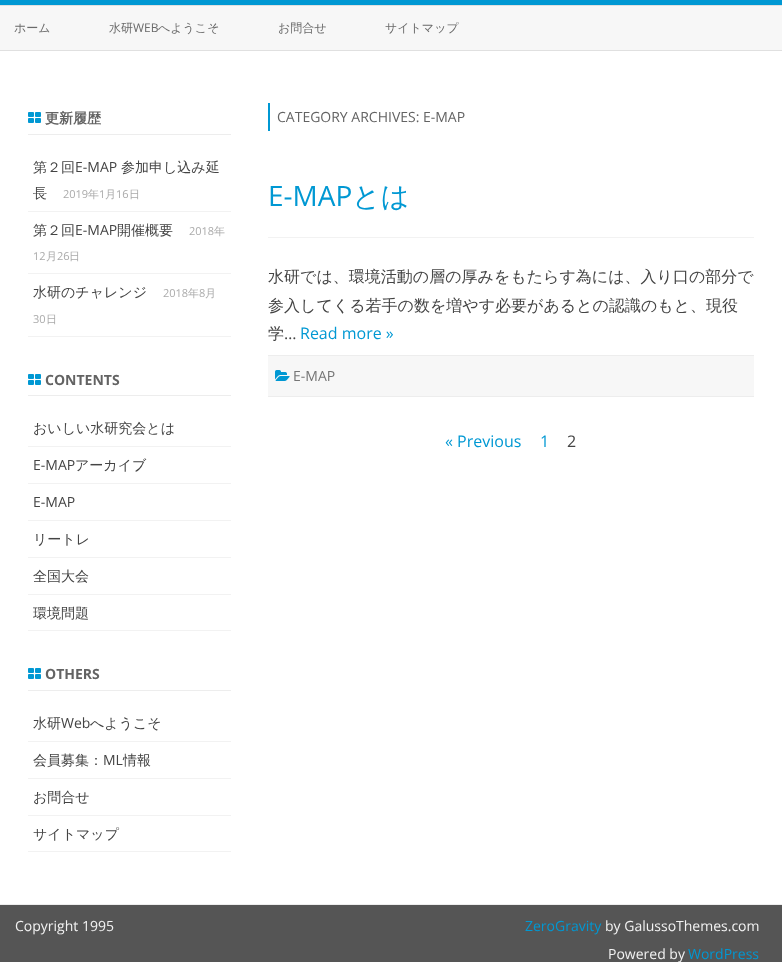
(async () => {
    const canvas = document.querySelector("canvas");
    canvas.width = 782;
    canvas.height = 962;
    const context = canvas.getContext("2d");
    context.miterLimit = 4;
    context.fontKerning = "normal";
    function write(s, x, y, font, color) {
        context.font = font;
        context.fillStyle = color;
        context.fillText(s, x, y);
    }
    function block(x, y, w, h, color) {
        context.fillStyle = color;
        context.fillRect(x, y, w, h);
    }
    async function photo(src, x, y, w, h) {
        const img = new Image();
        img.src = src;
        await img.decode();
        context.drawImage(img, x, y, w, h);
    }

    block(0, 0, 782, 962, "rgb(255, 255, 255)");
    block(0, 0, 782, 5, "rgb(0, 152, 211)");
    block(0, 6, 782, 44, "rgb(247, 247, 247)");
    block(0, 5, 782, 1, "rgb(224, 224, 224)");
    block(0, 50, 782, 1, "rgb(224, 224, 224)");
    write("ホーム", 14, 32, "500 12px WenQuanYi Zen Hei", "rgb(106, 106, 106)");
    write("水研", 109, 32, "500 12px WenQuanYi Zen Hei", "rgb(106, 106, 106)");
    write("WEB", 133, 32, "12px Open Sans", "rgb(106, 106, 106)");
    write("へようこそ", 158, 32, "500 12px WenQuanYi Zen Hei", "rgb(106, 106, 106)");
    write("お問合せ", 278, 32, "500 12px WenQuanYi Zen Hei", "rgb(106, 106, 106)");
    write("サイトマップ", 385, 32, "500 12px WenQuanYi Zen Hei", "rgb(106, 106, 106)");
    block(28, 134, 203, 1, "rgb(237, 237, 237)");
    await photo("media/1.png", 28, 112, 13, 11);
    write("更新履歴", 45, 123, "bold 14px WenQuanYi Zen Hei", "rgb(99, 99, 99)");
    block(28, 211, 203, 1, "rgb(242, 242, 242)");
    write("第２回", 33, 172, "500 14px WenQuanYi Zen Hei", "rgb(68, 68, 68)");
    write("E-MAP", 75, 172, "14px Open Sans", "rgb(68, 68, 68)");
    write("参加申し込み延", 121, 172, "500 14px WenQuanYi Zen Hei", "rgb(68, 68, 68)");
    write("長", 33, 198, "500 14px WenQuanYi Zen Hei", "rgb(68, 68, 68)");
    write("2019", 63, 198, "11px Open Sans", "rgb(170, 170, 170)");
    write("年", 88, 198, "500 11px WenQuanYi Zen Hei", "rgb(170, 170, 170)");
    write("1", 99, 198, "11px Open Sans", "rgb(170, 170, 170)");
    write("月", 105, 198, "500 11px WenQuanYi Zen Hei", "rgb(170, 170, 170)");
    write("16", 116, 198, "11px Open Sans", "rgb(170, 170, 170)");
    write("日", 129, 198, "500 11px WenQuanYi Zen Hei", "rgb(170, 170, 170)");
    block(28, 273, 203, 1, "rgb(242, 242, 242)");
    write("第２回", 33, 235, "500 14px WenQuanYi Zen Hei", "rgb(68, 68, 68)");
    write("E-MAP", 75, 235, "14px Open Sans", "rgb(68, 68, 68)");
    write("開催概要", 117, 235, "500 14px WenQuanYi Zen Hei", "rgb(68, 68, 68)");
    write("2018", 189, 235, "11px Open Sans", "rgb(170, 170, 170)");
    write("年", 214, 235, "500 11px WenQuanYi Zen Hei", "rgb(170, 170, 170)");
    write("12", 33, 260, "11px Open Sans", "rgb(170, 170, 170)");
    write("月", 46, 260, "500 11px WenQuanYi Zen Hei", "rgb(170, 170, 170)");
    write("26", 57, 260, "11px Open Sans", "rgb(170, 170, 170)");
    write("日", 69, 260, "500 11px WenQuanYi Zen Hei", "rgb(170, 170, 170)");
    block(28, 336, 203, 1, "rgb(242, 242, 242)");
    write("水研のチャレンジ", 33, 297, "500 14px WenQuanYi Zen Hei", "rgb(68, 68, 68)");
    write("2018", 163, 297, "11px Open Sans", "rgb(170, 170, 170)");
    write("年", 188, 297, "500 11px WenQuanYi Zen Hei", "rgb(170, 170, 170)");
    write("8", 199, 297, "11px Open Sans", "rgb(170, 170, 170)");
    write("月", 205, 297, "500 11px WenQuanYi Zen Hei", "rgb(170, 170, 170)");
    write("30", 33, 323, "11px Open Sans", "rgb(170, 170, 170)");
    write("日", 46, 323, "500 11px WenQuanYi Zen Hei", "rgb(170, 170, 170)");
    block(28, 395, 203, 1, "rgb(237, 237, 237)");
    await photo("media/1.png", 28, 374, 13, 11);
    write("CONTENTS", 45, 385, "bold 14px Open Sans", "rgb(99, 99, 99)");
    block(28, 446, 203, 1, "rgb(242, 242, 242)");
    write("おいしい水研究会とは", 33, 433, "500 14px WenQuanYi Zen Hei", "rgb(68, 68, 68)");
    block(28, 483, 203, 1, "rgb(242, 242, 242)");
    write("E-MAP", 33, 470, "14px Open Sans", "rgb(68, 68, 68)");
    write("アーカイブ", 75, 470, "500 14px WenQuanYi Zen Hei", "rgb(68, 68, 68)");
    block(28, 520, 203, 1, "rgb(242, 242, 242)");
    write("E-MAP", 33, 507, "14px Open Sans", "rgb(68, 68, 68)");
    block(28, 557, 203, 1, "rgb(242, 242, 242)");
    write("リートレ", 33, 544, "500 14px WenQuanYi Zen Hei", "rgb(68, 68, 68)");
    block(28, 594, 203, 1, "rgb(242, 242, 242)");
    write("全国大会", 33, 581, "500 14px WenQuanYi Zen Hei", "rgb(68, 68, 68)");
    block(28, 630, 203, 1, "rgb(242, 242, 242)");
    write("環境問題", 33, 618, "500 14px WenQuanYi Zen Hei", "rgb(68, 68, 68)");
    block(28, 690, 203, 1, "rgb(237, 237, 237)");
    await photo("media/1.png", 28, 668, 13, 11);
    write("OTHERS", 45, 679, "bold 14px Open Sans", "rgb(99, 99, 99)");
    block(28, 741, 203, 1, "rgb(242, 242, 242)");
    write("水研", 33, 728, "500 14px WenQuanYi Zen Hei", "rgb(68, 68, 68)");
    write("Web", 61, 728, "14px Open Sans", "rgb(68, 68, 68)");
    write("へようこそ", 90, 728, "500 14px WenQuanYi Zen Hei", "rgb(68, 68, 68)");
    block(28, 778, 203, 1, "rgb(242, 242, 242)");
    write("会員募集：", 33, 765, "500 14px WenQuanYi Zen Hei", "rgb(68, 68, 68)");
    write("ML", 103, 765, "14px Open Sans", "rgb(68, 68, 68)");
    write("情報", 123, 765, "500 14px WenQuanYi Zen Hei", "rgb(68, 68, 68)");
    block(28, 815, 203, 1, "rgb(242, 242, 242)");
    write("お問合せ", 33, 802, "500 14px WenQuanYi Zen Hei", "rgb(68, 68, 68)");
    block(28, 851, 203, 1, "rgb(242, 242, 242)");
    write("サイトマップ", 33, 839, "500 14px WenQuanYi Zen Hei", "rgb(68, 68, 68)");
    block(268, 103, 2, 28, "rgb(0, 152, 211)");
    write("CATEGORY ARCHIVES: E-MAP", 277, 122, "14px Open Sans", "rgb(99, 99, 99)");
    block(268, 396, 486, 1, "rgb(237, 237, 237)");
    write("E-MAP", 268, 206, "28px Open Sans", "rgb(0, 152, 211)");
    write("とは", 352, 206, "500 28px WenQuanYi Zen Hei", "rgb(0, 152, 211)");
    block(268, 237, 486, 1, "rgb(242, 242, 242)");
    block(268, 355, 486, 1, "rgb(237, 237, 237)");
    write("水研では、環境活動の層の厚みをもたらす為には、入り口の部分で", 268, 282, "500 16px WenQuanYi Zen Hei", "rgb(68, 68, 68)");
    write("参入してくる若手の数を増やす必要があるとの認識のもと、現役", 268, 311, "500 16px WenQuanYi Zen Hei", "rgb(68, 68, 68)");
    write("学", 268, 339, "500 16px WenQuanYi Zen Hei", "rgb(68, 68, 68)");
    write("…", 284, 339, "16px Open Sans", "rgb(68, 68, 68)");
    write("Read more »", 300, 339, "16px Open Sans", "rgb(0, 152, 211)");
    block(268, 356, 486, 40, "rgb(247, 247, 247)");
    await photo("media/2.png", 275, 370, 15, 11);
    write("E-MAP", 293, 381, "14px Open Sans", "rgb(117, 117, 117)");
    write("« Previous", 445, 447, "16px Open Sans", "rgb(0, 152, 211)");
    write("1", 540, 447, "16px Open Sans", "rgb(0, 152, 211)");
    write("2", 567, 447, "16px Open Sans", "rgb(68, 68, 68)");
    block(0, 905, 782, 57, "rgb(85, 85, 85)");
    block(0, 904, 782, 1, "rgb(237, 237, 237)");
    write("Copyright 1995", 15, 931, "14px Open Sans", "rgb(242, 242, 242)");
    write("ZeroGravity", 525, 931, "14px Open Sans", "rgb(0, 152, 211)");
    write("by GalussoThemes.com", 605, 931, "14px Open Sans", "rgb(242, 242, 242)");
    write("Powered by", 608, 959, "14px Open Sans", "rgb(242, 242, 242)");
    write("WordPress", 688, 959, "14px Open Sans", "rgb(0, 152, 211)");
})();
